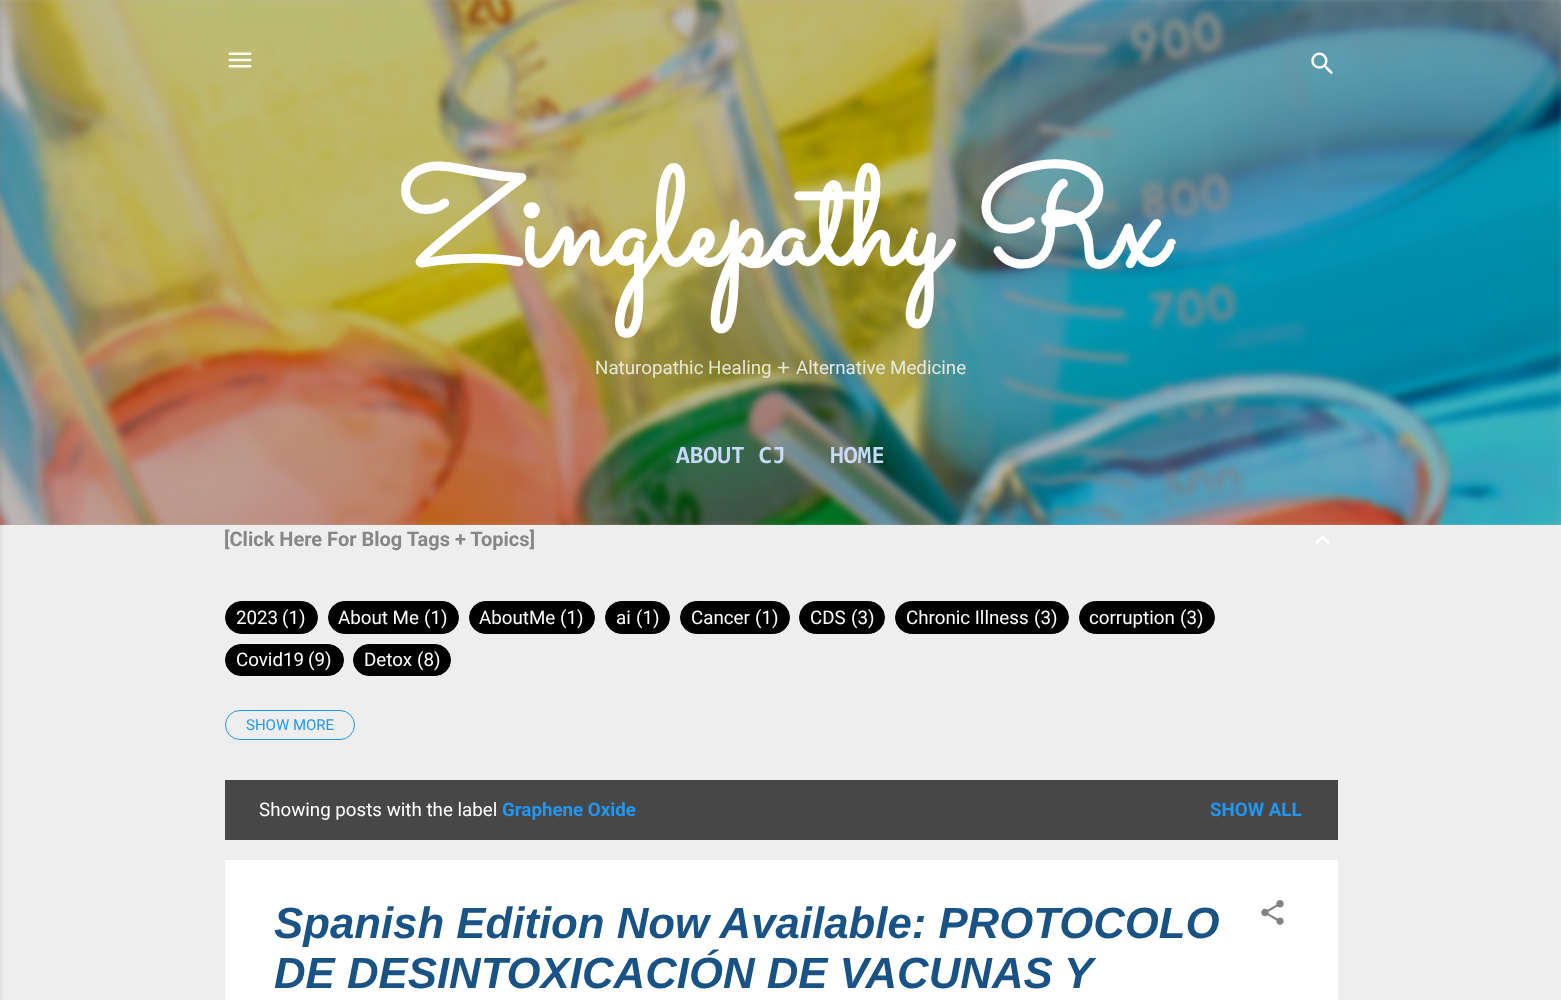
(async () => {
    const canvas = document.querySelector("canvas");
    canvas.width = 1561;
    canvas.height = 1000;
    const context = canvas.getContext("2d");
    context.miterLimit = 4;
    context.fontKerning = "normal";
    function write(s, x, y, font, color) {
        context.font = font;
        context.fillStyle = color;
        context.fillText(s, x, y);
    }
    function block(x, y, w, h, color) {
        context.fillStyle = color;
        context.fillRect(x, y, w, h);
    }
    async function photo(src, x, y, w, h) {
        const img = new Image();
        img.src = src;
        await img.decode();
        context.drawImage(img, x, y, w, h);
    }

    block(0, 0, 1561, 1000, "rgb(238, 238, 238)");
    context.save();
    context.beginPath();
    context.rect(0, 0, 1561, 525);
    context.clip();
    context.fillStyle = "rgb(180, 176, 169)";
    context.filter = "blur(4px)";
    context.beginPath();
    context.rect(-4, -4, 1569, 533);
    context.fill();
    context.filter = "none";
    context.restore();
    await photo("media/1.png", 0, 0, 1561, 525);
    context.fillStyle = "rgba(0, 0, 0, 0.1)";
    context.filter = "blur(2px)";
    context.beginPath();
    context.rect(-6, 1, 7, 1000);
    context.fill();
    context.filter = "none";
    await photo("media/2.png", 228, 52, 24, 16);
    await photo("media/3.png", 1311, 52, 22, 23);
    write("Zinglepathy Rx", 397, 265, "bold 137.5px Sacramento", "rgb(255, 255, 255)");
    write("Naturopathic Healing", 595, 374, "18.75px Roboto", "rgb(233, 231, 216)");
    write("𑁕", 776, 374, "18.75px Noto Sans Brahmi", "rgb(233, 231, 216)");
    write("Alternative Medicine", 796, 374, "18.75px Roboto", "rgb(229, 233, 224)");
    write("ABOUT CJ", 676, 463, "bold 25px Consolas", "rgb(198, 218, 252)");
    write("HOME", 830, 463, "bold 25px Consolas", "rgb(198, 218, 252)");
    write("[Click Here For Blog Tags + Topics]", 224, 546, "bold 20px Roboto", "rgb(134, 134, 134)");
    await photo("media/4.png", 1315, 535, 15, 9);
    context.fillStyle = "rgb(0, 0, 0)";
    context.beginPath();
    context.roundRect(225.5, 601.5, 92, 32, 16);
    context.fill();
    context.strokeStyle = "rgb(0, 0, 0)";
    context.stroke();
    write("2023", 236, 624, "18.75px Roboto", "rgb(255, 255, 255)");
    write("(1)", 282, 624, "18.75px Roboto", "rgb(255, 255, 255)");
    context.fillStyle = "rgb(0, 0, 0)";
    context.beginPath();
    context.roundRect(328.5, 601.5, 130, 32, 16);
    context.fill();
    context.stroke();
    write("About Me", 338, 624, "18.75px Roboto", "rgb(255, 255, 255)");
    write("(1)", 424, 624, "18.75px Roboto", "rgb(255, 255, 255)");
    context.fillStyle = "rgb(0, 0, 0)";
    context.beginPath();
    context.roundRect(469.5, 601.5, 125, 32, 16);
    context.fill();
    context.stroke();
    write("AboutMe", 479, 624, "18.75px Roboto", "rgb(255, 255, 255)");
    write("(1)", 560, 624, "18.75px Roboto", "rgb(255, 255, 255)");
    context.fillStyle = "rgb(0, 0, 0)";
    context.beginPath();
    context.roundRect(605.5, 601.5, 64, 32, 16);
    context.fill();
    context.stroke();
    write("ai", 616, 624, "18.75px Roboto", "rgb(255, 255, 255)");
    write("(1)", 636, 624, "18.75px Roboto", "rgb(255, 255, 255)");
    context.fillStyle = "rgb(0, 0, 0)";
    context.beginPath();
    context.roundRect(680.5, 601.5, 109, 32, 16);
    context.fill();
    context.stroke();
    write("Cancer", 691, 624, "18.75px Roboto", "rgb(255, 255, 255)");
    write("(1)", 755, 624, "18.75px Roboto", "rgb(255, 255, 255)");
    context.fillStyle = "rgb(0, 0, 0)";
    context.beginPath();
    context.roundRect(799.5, 601.5, 85, 32, 16);
    context.fill();
    context.stroke();
    write("CDS", 810, 624, "18.75px Roboto", "rgb(255, 255, 255)");
    write("(3)", 851, 624, "18.75px Roboto", "rgb(255, 255, 255)");
    context.fillStyle = "rgb(0, 0, 0)";
    context.beginPath();
    context.roundRect(895.5, 601.5, 173, 32, 16);
    context.fill();
    context.stroke();
    write("Chronic Illness", 906, 624, "18.75px Roboto", "rgb(255, 255, 255)");
    write("(3)", 1034, 624, "18.75px Roboto", "rgb(255, 255, 255)");
    context.fillStyle = "rgb(0, 0, 0)";
    context.beginPath();
    context.roundRect(1079.5, 601.5, 135, 32, 16);
    context.fill();
    context.stroke();
    write("corruption", 1089, 624, "18.75px Roboto", "rgb(255, 255, 255)");
    write("(3)", 1180, 624, "18.75px Roboto", "rgb(255, 255, 255)");
    context.fillStyle = "rgb(0, 0, 0)";
    context.beginPath();
    context.roundRect(225.5, 644.5, 118, 31, 15.5);
    context.fill();
    context.stroke();
    write("Covid19", 236, 666, "18.75px Roboto", "rgb(255, 255, 255)");
    write("(9)", 308, 666, "18.75px Roboto", "rgb(255, 255, 255)");
    context.fillStyle = "rgb(0, 0, 0)";
    context.beginPath();
    context.roundRect(353.5, 644.5, 97, 31, 15.5);
    context.fill();
    context.stroke();
    write("Detox", 364, 666, "18.75px Roboto", "rgb(255, 255, 255)");
    write("(8)", 417, 666, "18.75px Roboto", "rgb(255, 255, 255)");
    context.beginPath();
    context.roundRect(225.5, 710.5, 129, 29, 14.5);
    context.strokeStyle = "rgb(33, 150, 243)";
    context.stroke();
    write("SHOW MORE", 246, 730, "15px Roboto", "rgb(33, 150, 243)");
    block(225, 780, 1113, 60, "rgb(71, 71, 71)");
    write("Showing posts with the label", 259, 816, "18.75px Roboto", "rgb(255, 255, 255)");
    write("Graphene Oxide", 502, 816, "bold 18.75px Roboto", "rgb(33, 150, 243)");
    write("SHOW ALL", 1210, 816, "bold 18.75px Roboto", "rgb(33, 150, 243)");
    block(225, 860, 1113, 140, "rgb(255, 255, 255)");
    write("Spanish Edition Now Available: PROTOCOLO", 274, 938, "italic bold 43.75px Liberation Sans", "rgb(25, 82, 132)");
    write("DE DESINTOXICACIÓN DE VACUNAS Y", 274, 988, "italic bold 43.75px Liberation Sans", "rgb(25, 82, 132)");
    await photo("media/5.png", 1261, 900, 23, 25);
})();
